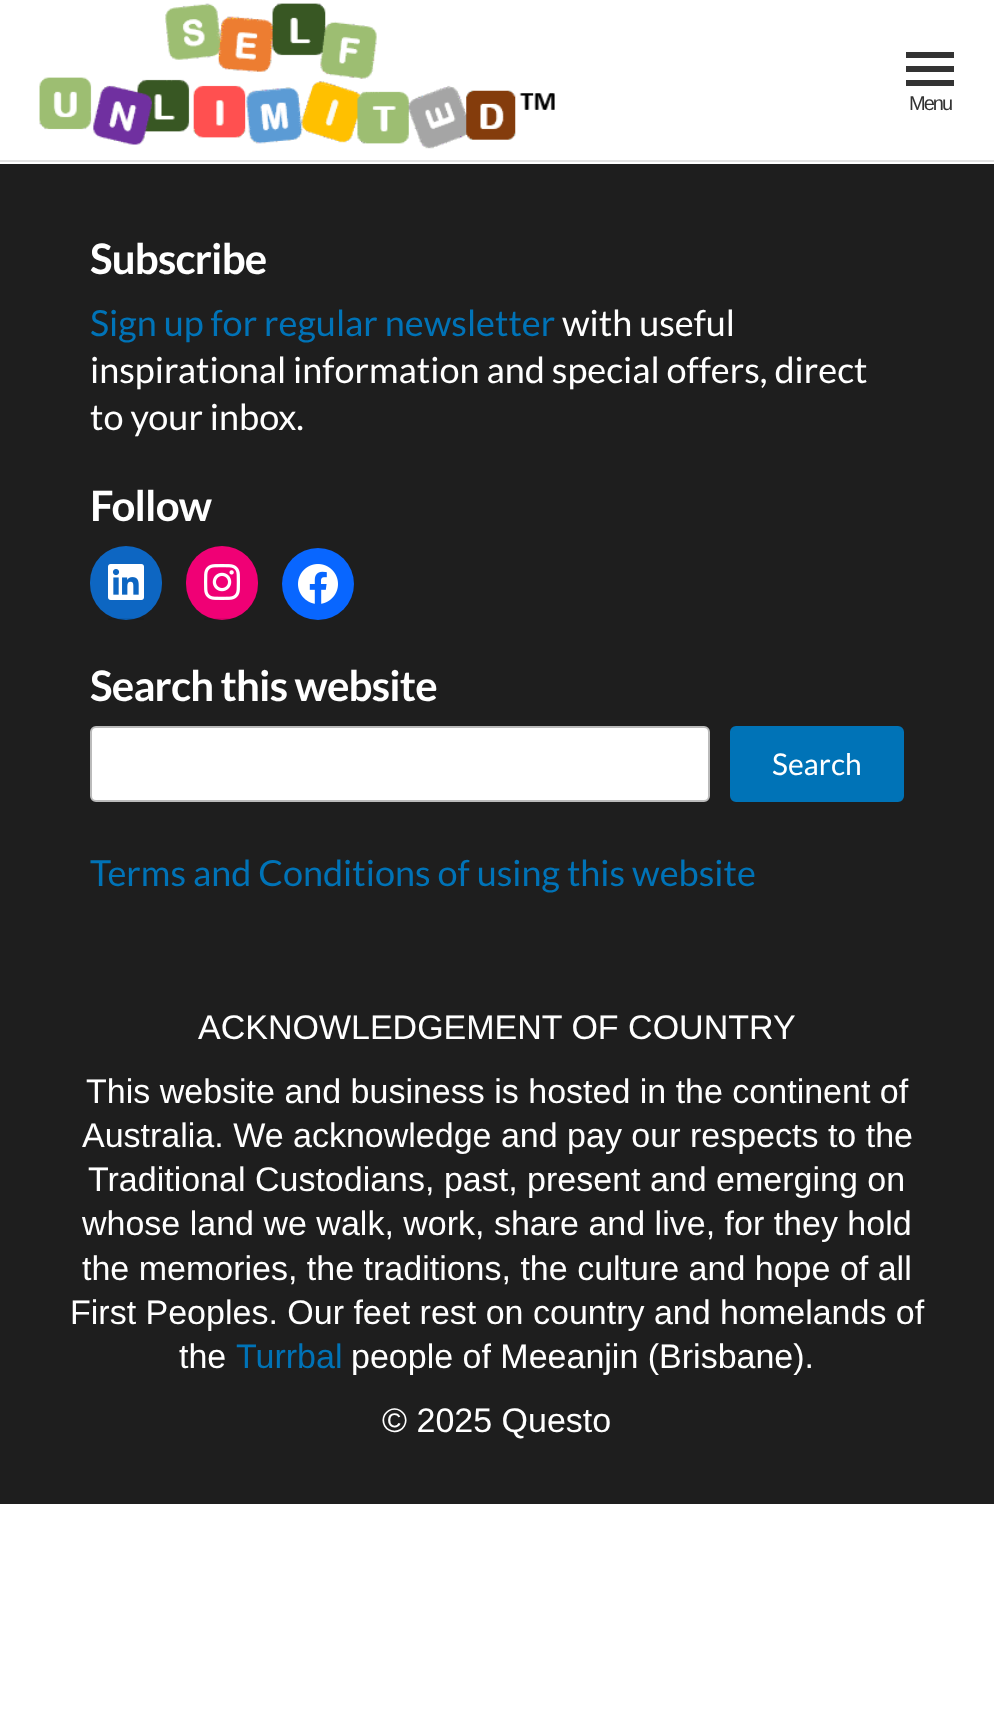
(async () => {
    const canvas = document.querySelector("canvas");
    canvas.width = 994;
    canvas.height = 1723;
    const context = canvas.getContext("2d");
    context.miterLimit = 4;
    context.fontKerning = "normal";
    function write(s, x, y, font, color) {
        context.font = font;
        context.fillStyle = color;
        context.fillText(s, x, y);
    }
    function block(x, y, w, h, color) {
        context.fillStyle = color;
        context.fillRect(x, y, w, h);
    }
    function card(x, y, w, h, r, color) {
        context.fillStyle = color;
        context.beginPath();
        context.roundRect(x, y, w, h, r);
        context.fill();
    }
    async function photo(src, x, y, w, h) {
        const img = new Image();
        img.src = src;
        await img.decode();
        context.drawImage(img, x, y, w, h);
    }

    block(0, 0, 994, 1723, "rgb(255, 255, 255)");
    block(0, 160, 994, 2, "rgb(226, 226, 226)");
    await photo("media/1.png", 39, 3, 516, 146);
    block(906, 52, 48, 6, "rgb(51, 51, 51)");
    block(906, 66, 48, 6, "rgb(51, 51, 51)");
    block(906, 80, 48, 6, "rgb(51, 51, 51)");
    context.letterSpacing = "-2px";
    write("Menu", 909, 110, "20px Liberation Sans", "rgb(51, 51, 51)");
    block(0, 164, 994, 1340, "rgb(30, 30, 30)");
    context.letterSpacing = "-0.8px";
    write("Subscribe", 90, 274, "bold 42px Lato", "rgb(255, 255, 255)");
    context.letterSpacing = "0px";
    write("Sign up for regular newsletter", 90, 336, "36px Lato", "rgb(0, 115, 183)");
    write("with useful", 562, 336, "36px Lato", "rgb(255, 255, 255)");
    write("inspirational information and special offers, direct", 90, 383, "36px Lato", "rgb(255, 255, 255)");
    write("to your inbox.", 90, 430, "36px Lato", "rgb(255, 255, 255)");
    context.letterSpacing = "-0.8px";
    write("Follow", 90, 521, "bold 42px Lato", "rgb(255, 255, 255)");
    card(90, 546, 72, 74, 36, "rgb(13, 102, 194)");
    block(108, 618, 36, 2, "rgba(0, 0, 0, 0.08)");
    await photo("media/2.png", 108, 564, 36, 36);
    card(186, 546, 72, 74, 36, "rgb(240, 0, 117)");
    block(204, 618, 36, 2, "rgba(0, 0, 0, 0.08)");
    await photo("media/3.png", 204, 564, 36, 36);
    context.fillStyle = "rgb(8, 102, 255)";
    context.beginPath();
    context.arc(318, 584, 36, 0, Math.PI * 2);
    context.fill();
    await photo("media/4.png", 298, 564, 40, 40);
    write("Search this website", 90, 701, "bold 42px Lato", "rgb(255, 255, 255)");
    context.beginPath();
    context.roundRect(91, 727, 618, 74, 5);
    context.fill();
    context.strokeStyle = "rgb(187, 187, 187)";
    context.lineWidth = 2;
    context.stroke();
    context.fillStyle = "rgb(0, 115, 183)";
    context.beginPath();
    context.roundRect(731, 727, 172, 74, 5);
    context.fill();
    context.strokeStyle = "rgb(0, 115, 183)";
    context.stroke();
    context.letterSpacing = "0px";
    write("Search", 772, 775, "30px Lato", "rgb(255, 255, 255)");
    write("Terms and Conditions of using this website", 90, 886, "36px Lato", "rgb(0, 115, 183)");
    write("ACKNOWLEDGEMENT OF COUNTRY", 198, 1039, "34px Liberation Sans", "rgb(255, 255, 255)");
    write("This website and business is hosted in the continent of", 86, 1103, "34px Liberation Sans", "rgb(255, 255, 255)");
    write("Australia. We acknowledge and pay our respects to the", 82, 1147, "34px Liberation Sans", "rgb(255, 255, 255)");
    write("Traditional Custodians, past, present and emerging on", 88, 1191, "34px Liberation Sans", "rgb(255, 255, 255)");
    write("whose land we walk, work, share and live, for they hold", 82, 1235, "34px Liberation Sans", "rgb(255, 255, 255)");
    write("the memories, the traditions, the culture and hope of all", 82, 1280, "34px Liberation Sans", "rgb(255, 255, 255)");
    write("First Peoples. Our feet rest on country and homelands of", 70, 1324, "34px Liberation Sans", "rgb(255, 255, 255)");
    write("the", 179, 1368, "34px Liberation Sans", "rgb(255, 255, 255)");
    write("Turrbal", 236, 1368, "34px Liberation Sans", "rgb(0, 115, 183)");
    write("people of Meeanjin (Brisbane).", 351, 1368, "34px Liberation Sans", "rgb(255, 255, 255)");
    write("© 2025 Questo", 382, 1432, "34px Liberation Sans", "rgb(255, 255, 255)");
})();
